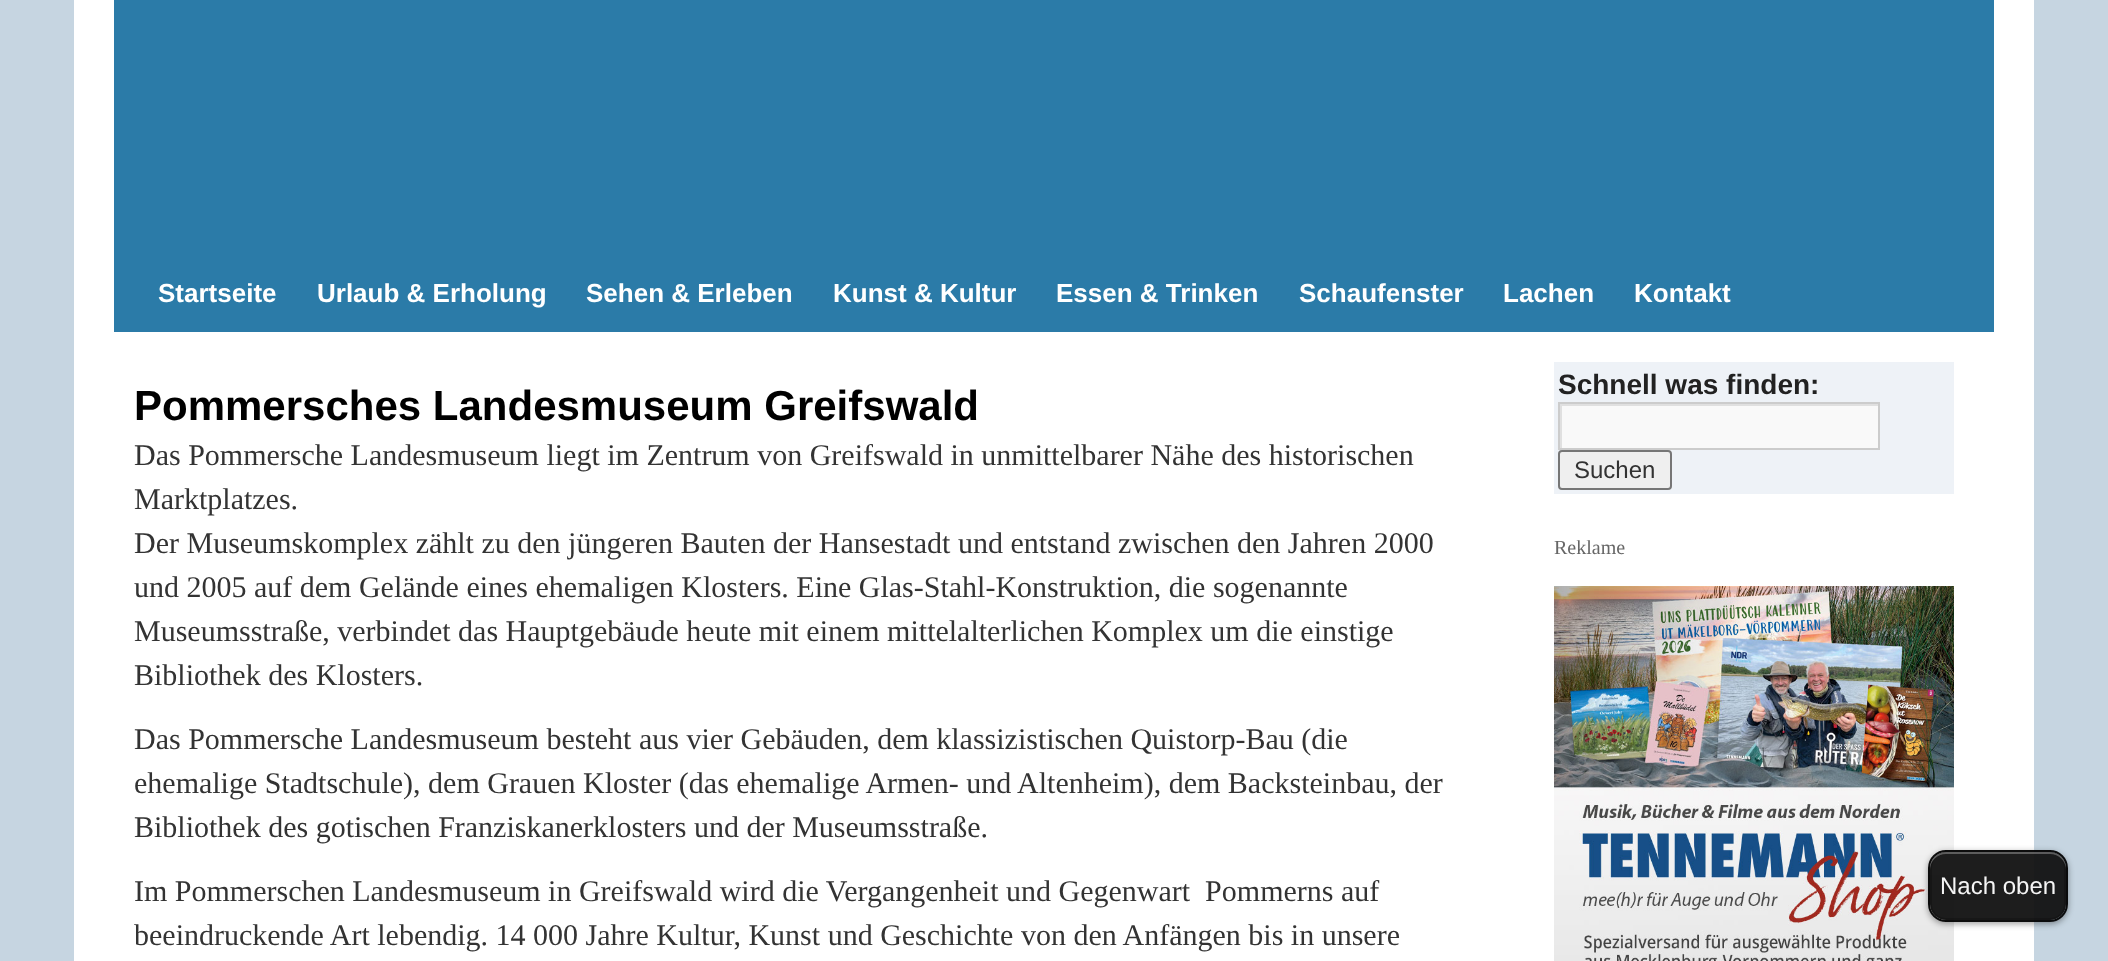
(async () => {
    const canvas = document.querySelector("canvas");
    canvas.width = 2108;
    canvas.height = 961;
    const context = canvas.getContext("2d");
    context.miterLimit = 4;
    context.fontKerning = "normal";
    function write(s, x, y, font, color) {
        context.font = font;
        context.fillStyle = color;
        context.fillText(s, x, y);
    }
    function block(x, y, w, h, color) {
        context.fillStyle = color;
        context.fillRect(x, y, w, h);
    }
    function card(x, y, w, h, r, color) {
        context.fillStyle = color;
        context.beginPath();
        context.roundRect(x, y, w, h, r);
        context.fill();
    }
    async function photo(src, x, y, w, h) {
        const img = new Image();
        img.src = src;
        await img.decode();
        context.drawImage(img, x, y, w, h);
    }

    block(0, 0, 2108, 961, "rgb(198, 213, 225)");
    block(74, 0, 1960, 961, "rgb(255, 255, 255)");
    block(114, 0, 1880, 332, "rgb(43, 123, 168)");
    write("Startseite", 158, 302, "bold 26px Liberation Sans", "rgb(255, 255, 255)");
    write("Urlaub & Erholung", 317, 302, "bold 26px Liberation Sans", "rgb(255, 255, 255)");
    write("Sehen & Erleben", 586, 302, "bold 26px Liberation Sans", "rgb(255, 255, 255)");
    write("Kunst & Kultur", 833, 302, "bold 26px Liberation Sans", "rgb(255, 255, 255)");
    write("Essen & Trinken", 1056, 302, "bold 26px Liberation Sans", "rgb(255, 255, 255)");
    write("Schaufenster", 1299, 302, "bold 26px Liberation Sans", "rgb(255, 255, 255)");
    write("Lachen", 1503, 302, "bold 26px Liberation Sans", "rgb(255, 255, 255)");
    write("Kontakt", 1634, 302, "bold 26px Liberation Sans", "rgb(255, 255, 255)");
    write("Pommersches Landesmuseum Greifswald", 134, 420, "bold 42px Liberation Sans", "rgb(0, 0, 0)");
    write("Das Pommersche Landesmuseum liegt im Zentrum von Greifswald in unmittelbarer Nähe des historischen", 134, 465, "30px Liberation Serif", "rgb(51, 51, 51)");
    write("Marktplatzes.", 134, 509, "30px Liberation Serif", "rgb(51, 51, 51)");
    write("Der Museumskomplex zählt zu den jüngeren Bauten der Hansestadt und entstand zwischen den Jahren 2000", 134, 553, "30px Liberation Serif", "rgb(51, 51, 51)");
    write("und 2005 auf dem Gelände eines ehemaligen Klosters. Eine Glas-Stahl-Konstruktion, die sogenannte", 134, 597, "30px Liberation Serif", "rgb(51, 51, 51)");
    write("Museumsstraße, verbindet das Hauptgebäude heute mit einem mittelalterlichen Komplex um die einstige", 134, 641, "30px Liberation Serif", "rgb(51, 51, 51)");
    write("Bibliothek des Klosters.", 134, 685, "30px Liberation Serif", "rgb(51, 51, 51)");
    write("Das Pommersche Landesmuseum besteht aus vier Gebäuden, dem klassizistischen Quistorp-Bau (die", 134, 749, "30px Liberation Serif", "rgb(51, 51, 51)");
    write("ehemalige Stadtschule), dem Grauen Kloster (das ehemalige Armen- und Altenheim), dem Backsteinbau, der", 134, 793, "30px Liberation Serif", "rgb(51, 51, 51)");
    write("Bibliothek des gotischen Franziskanerklosters und der Museumsstraße.", 134, 837, "30px Liberation Serif", "rgb(51, 51, 51)");
    write("Im Pommerschen Landesmuseum in Greifswald wird die Vergangenheit und Gegenwart  Pommerns auf", 134, 901, "30px Liberation Serif", "rgb(51, 51, 51)");
    write("beeindruckende Art lebendig. 14 000 Jahre Kultur, Kunst und Geschichte von den Anfängen bis in unsere", 134, 945, "30px Liberation Serif", "rgb(51, 51, 51)");
    block(1554, 362, 400, 132, "rgb(238, 242, 247)");
    write("Schnell was finden:", 1558, 394, "bold 28px Liberation Sans", "rgb(34, 34, 34)");
    block(1562, 406, 316, 42, "rgb(249, 249, 249)");
    context.save();
    context.beginPath();
    context.rect(1560, 404, 318, 44);
    context.clip();
    context.fillStyle = "rgb(224, 224, 224)";
    context.beginPath();
    context.moveTo(1362, 206);
    context.lineTo(2076, 206);
    context.lineTo(2076, 646);
    context.lineTo(1362, 646);
    context.closePath();
    context.moveTo(1562, 406);
    context.lineTo(1880, 406);
    context.lineTo(1880, 450);
    context.lineTo(1562, 450);
    context.closePath();
    context.fill("evenodd");
    context.restore();
    context.strokeStyle = "rgb(204, 204, 204)";
    context.lineWidth = 2;
    context.strokeRect(1559, 403, 320, 46);
    context.fillStyle = "rgb(239, 239, 239)";
    context.beginPath();
    context.roundRect(1559, 451, 112, 38, 3);
    context.fill();
    context.strokeStyle = "rgb(118, 118, 118)";
    context.stroke();
    write("Suchen", 1574, 478, "24px Liberation Sans", "rgb(51, 51, 51)");
    write("Reklame", 1554, 554, "20px Liberation Serif", "rgb(102, 102, 102)");
    await photo("media/1.png", 1554, 586, 400, 375);
    context.save();
    context.beginPath();
    context.moveTo(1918, 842);
    context.lineTo(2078, 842);
    context.lineTo(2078, 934);
    context.lineTo(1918, 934);
    context.closePath();
    context.moveTo(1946, 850);
    context.lineTo(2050, 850);
    context.bezierCurveTo(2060, 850, 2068, 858, 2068, 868);
    context.lineTo(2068, 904);
    context.bezierCurveTo(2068, 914, 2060, 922, 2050, 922);
    context.lineTo(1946, 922);
    context.bezierCurveTo(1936, 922, 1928, 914, 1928, 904);
    context.lineTo(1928, 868);
    context.bezierCurveTo(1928, 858, 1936, 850, 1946, 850);
    context.closePath();
    context.clip("evenodd");
    context.fillStyle = "rgba(0, 0, 0, 0.38)";
    context.filter = "blur(3px)";
    context.beginPath();
    context.roundRect(1928, 852, 140, 72, 18);
    context.fill();
    context.filter = "none";
    context.restore();
    card(1930, 852, 136, 68, 16, "rgba(17, 17, 17, 0.95)");
    context.fillStyle = "rgba(255, 255, 255, 0.38)";
    context.beginPath();
    context.moveTo(1946, 854);
    context.lineTo(2050, 854);
    context.bezierCurveTo(2059, 854, 2066, 861, 2066, 870);
    context.bezierCurveTo(2066, 849, 2048, 852, 2033, 852);
    context.lineTo(1963, 852);
    context.bezierCurveTo(1948, 852, 1930, 849, 1930, 870);
    context.bezierCurveTo(1930, 861, 1937, 854, 1946, 854);
    context.closePath();
    context.fill();
    context.beginPath();
    context.roundRect(1931, 853, 134, 66, 15);
    context.strokeStyle = "rgba(0, 0, 0, 0.19)";
    context.stroke();
    context.beginPath();
    context.roundRect(1929, 851, 138, 70, 17);
    context.strokeStyle = "rgba(0, 0, 0, 0.95)";
    context.stroke();
    write("Nach oben", 1940, 894, "24px Liberation Sans", "rgb(244, 244, 244)");
})();
